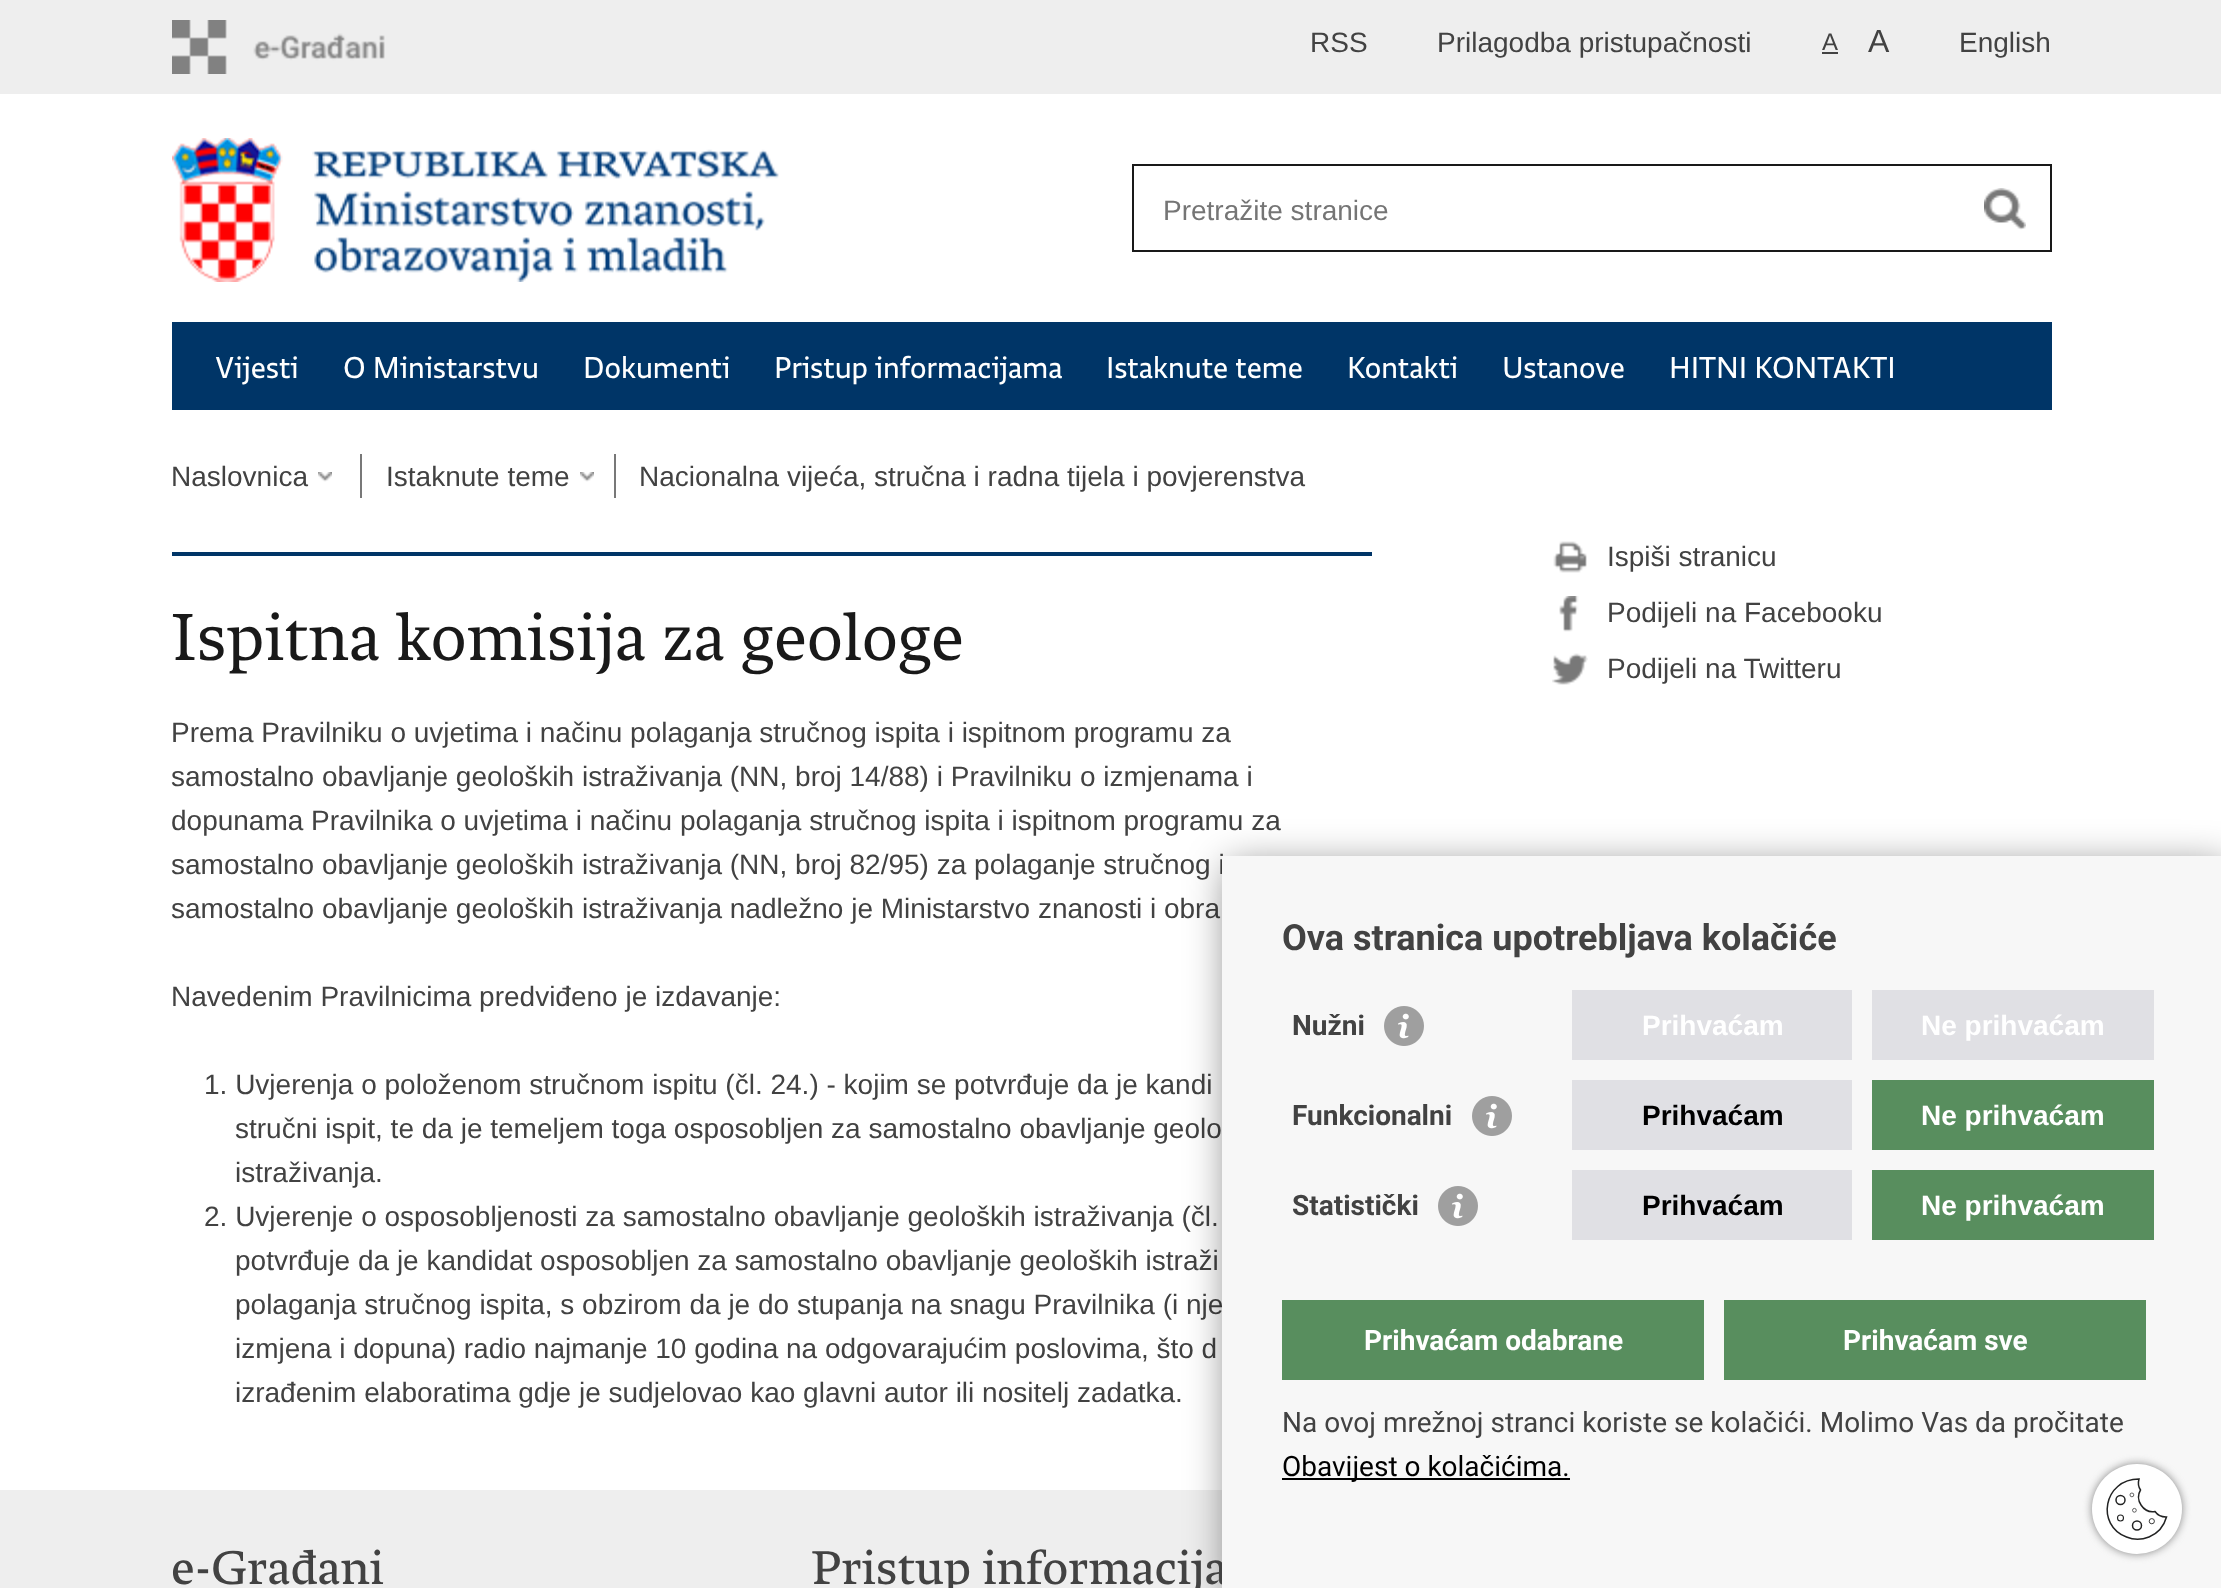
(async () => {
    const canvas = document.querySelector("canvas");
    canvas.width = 2221;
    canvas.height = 1588;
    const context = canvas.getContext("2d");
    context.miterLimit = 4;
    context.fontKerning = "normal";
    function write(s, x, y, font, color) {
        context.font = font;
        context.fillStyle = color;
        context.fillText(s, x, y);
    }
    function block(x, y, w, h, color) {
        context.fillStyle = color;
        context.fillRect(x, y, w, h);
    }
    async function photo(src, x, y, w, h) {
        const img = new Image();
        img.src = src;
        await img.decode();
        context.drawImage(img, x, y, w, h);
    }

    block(0, 0, 2221, 1588, "rgb(255, 255, 255)");
    block(0, 0, 2221, 94, "rgb(238, 238, 238)");
    await photo("media/1.png", 172, 20, 213, 54);
    write("RSS", 1310, 52, "28px Liberation Sans", "rgb(66, 66, 66)");
    write("Prilagodba pristupačnosti", 1437, 52, "28px Liberation Sans", "rgb(66, 66, 66)");
    write("A", 1822, 50, "24px Liberation Sans", "rgb(66, 66, 66)");
    block(1822, 52, 16, 2, "rgb(66, 66, 66)");
    write("A", 1868, 52, "32px Liberation Sans", "rgb(66, 66, 66)");
    write("English", 1959, 52, "28px Liberation Sans", "rgb(66, 66, 66)");
    await photo("media/2.png", 172, 138, 607, 144);
    context.strokeStyle = "rgb(25, 25, 25)";
    context.lineWidth = 2;
    context.strokeRect(1133, 165, 918, 86);
    write("Pretražite stranice", 1163, 220, "28px Liberation Sans", "rgb(117, 117, 117)");
    await photo("media/3.png", 1984, 188, 42, 42);
    block(172, 322, 1880, 88, "rgb(0, 53, 103)");
    write("Vijesti", 215, 378, "32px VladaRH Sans", "rgb(255, 255, 255)");
    write("O Ministarstvu", 343, 378, "32px VladaRH Sans", "rgb(255, 255, 255)");
    write("Dokumenti", 583, 378, "32px VladaRH Sans", "rgb(255, 255, 255)");
    write("Pristup informacijama", 774, 378, "32px VladaRH Sans", "rgb(255, 255, 255)");
    write("Istaknute teme", 1106, 378, "32px VladaRH Sans", "rgb(255, 255, 255)");
    write("Kontakti", 1347, 378, "32px VladaRH Sans", "rgb(255, 255, 255)");
    write("Ustanove", 1502, 378, "32px VladaRH Sans", "rgb(255, 255, 255)");
    write("HITNI KONTAKTI", 1669, 378, "32px VladaRH Sans", "rgb(255, 255, 255)");
    write("Naslovnica", 171, 486, "28px Liberation Sans", "rgb(66, 66, 66)");
    await photo("media/4.png", 318, 472, 14, 10);
    block(360, 454, 2, 44, "rgb(120, 120, 120)");
    write("Istaknute teme", 386, 486, "28px Liberation Sans", "rgb(66, 66, 66)");
    await photo("media/4.png", 580, 472, 14, 10);
    block(614, 454, 2, 44, "rgb(120, 120, 120)");
    write("Nacionalna vijeća, stručna i radna tijela i povjerenstva", 639, 486, "28px Liberation Sans", "rgb(66, 66, 66)");
    block(172, 552, 1200, 4, "rgb(0, 53, 103)");
    write("Ispitna komisija za geologe", 171, 660, "70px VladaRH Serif", "rgb(25, 25, 25)");
    write("Prema Pravilniku o uvjetima i načinu polaganja stručnog ispita i ispitnom programu za", 171, 742, "28px Liberation Sans", "rgb(66, 66, 66)");
    write("samostalno obavljanje geoloških istraživanja (NN, broj 14/88) i Pravilniku o izmjenama i", 171, 786, "28px Liberation Sans", "rgb(66, 66, 66)");
    write("dopunama Pravilnika o uvjetima i načinu polaganja stručnog ispita i ispitnom programu za", 171, 830, "28px Liberation Sans", "rgb(66, 66, 66)");
    write("samostalno obavljanje geoloških istraživanja (NN, broj 82/95) za polaganje stručnog i", 171, 874, "28px Liberation Sans", "rgb(66, 66, 66)");
    write("samostalno obavljanje geoloških istraživanja nadležno je Ministarstvo znanosti i obra", 171, 918, "28px Liberation Sans", "rgb(66, 66, 66)");
    write("Navedenim Pravilnicima predviđeno je izdavanje:", 171, 1006, "28px Liberation Sans", "rgb(66, 66, 66)");
    write("1. Uvjerenja o položenom stručnom ispitu (čl. 24.) - kojim se potvrđuje da je kandi", 204, 1094, "28px Liberation Sans", "rgb(66, 66, 66)");
    write("stručni ispit, te da je temeljem toga osposobljen za samostalno obavljanje geolo", 235, 1138, "28px Liberation Sans", "rgb(66, 66, 66)");
    write("istraživanja.", 235, 1182, "28px Liberation Sans", "rgb(66, 66, 66)");
    write("2. Uvjerenje o osposobljenosti za samostalno obavljanje geoloških istraživanja (čl.", 204, 1226, "28px Liberation Sans", "rgb(66, 66, 66)");
    write("potvrđuje da je kandidat osposobljen za samostalno obavljanje geoloških istraži", 235, 1270, "28px Liberation Sans", "rgb(66, 66, 66)");
    write("polaganja stručnog ispita, s obzirom da je do stupanja na snagu Pravilnika (i nje", 235, 1314, "28px Liberation Sans", "rgb(66, 66, 66)");
    write("izmjena i dopuna) radio najmanje 10 godina na odgovarajućim poslovima, što d", 235, 1358, "28px Liberation Sans", "rgb(66, 66, 66)");
    write("izrađenim elaboratima gdje je sudjelovao kao glavni autor ili nositelj zadatka.", 235, 1402, "28px Liberation Sans", "rgb(66, 66, 66)");
    await photo("media/5.png", 1553, 541, 34, 32);
    write("Ispiši stranicu", 1607, 566, "28px Liberation Sans", "rgb(66, 66, 66)");
    await photo("media/6.png", 1559, 596, 20, 36);
    write("Podijeli na Facebooku", 1607, 622, "28px Liberation Sans", "rgb(66, 66, 66)");
    await photo("media/7.png", 1552, 653, 36, 32);
    write("Podijeli na Twitteru", 1607, 678, "28px Liberation Sans", "rgb(66, 66, 66)");
    block(0, 1490, 1222, 98, "rgb(238, 238, 238)");
    context.fillStyle = "rgba(0, 0, 0, 0.5)";
    context.filter = "blur(20px)";
    context.beginPath();
    context.rect(1228, 866, 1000, 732);
    context.fill();
    context.filter = "none";
    write("Pristup informacija", 811, 1584, "50px 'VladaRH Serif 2'", "rgb(66, 66, 66)");
    block(1222, 856, 999, 732, "rgb(247, 247, 247)");
    write("Ova stranica upotrebljava kolačiće", 1282, 950, "bold 36px Roboto", "rgb(66, 66, 66)");
    write("Nužni", 1292, 1035, "bold 28px Roboto", "rgb(66, 66, 66)");
    await photo("media/8.png", 1384, 1006, 40, 40);
    block(1572, 990, 280, 70, "rgb(224, 224, 228)");
    write("Prihvaćam", 1642, 1035, "bold 28px Liberation Sans", "rgb(255, 255, 255)");
    block(1872, 990, 282, 70, "rgb(224, 224, 228)");
    write("Ne prihvaćam", 1921, 1035, "bold 28px Liberation Sans", "rgb(255, 255, 255)");
    write("Funkcionalni", 1292, 1125, "bold 28px Roboto", "rgb(66, 66, 66)");
    await photo("media/8.png", 1472, 1096, 40, 40);
    block(1572, 1080, 280, 70, "rgb(224, 224, 228)");
    write("Prihvaćam", 1642, 1125, "bold 28px Liberation Sans", "rgb(0, 0, 0)");
    block(1872, 1080, 282, 70, "rgb(88, 142, 94)");
    write("Ne prihvaćam", 1921, 1125, "bold 28px Liberation Sans", "rgb(255, 255, 255)");
    write("Statistički", 1292, 1215, "bold 28px Roboto", "rgb(66, 66, 66)");
    await photo("media/8.png", 1438, 1186, 40, 40);
    block(1572, 1170, 280, 70, "rgb(224, 224, 228)");
    write("Prihvaćam", 1642, 1215, "bold 28px Liberation Sans", "rgb(0, 0, 0)");
    block(1872, 1170, 282, 70, "rgb(88, 142, 94)");
    write("Ne prihvaćam", 1921, 1215, "bold 28px Liberation Sans", "rgb(255, 255, 255)");
    block(1282, 1300, 422, 80, "rgb(88, 142, 94)");
    write("Prihvaćam odabrane", 1364, 1350, "bold 28px Roboto", "rgb(255, 255, 255)");
    block(1724, 1300, 422, 80, "rgb(88, 142, 94)");
    write("Prihvaćam sve", 1843, 1350, "bold 28px Roboto", "rgb(255, 255, 255)");
    write("Na ovoj mrežnoj stranci koriste se kolačići. Molimo Vas da pročitate", 1282, 1432, "28px Roboto", "rgb(66, 66, 66)");
    block(1282, 1478, 288, 2, "rgb(0, 0, 0)");
    write("Obavijest o kolačićima.", 1282, 1476, "28px Roboto", "rgb(0, 0, 0)");
    write("e-Građani", 171, 1584, "50px 'VladaRH Serif 2'", "rgb(66, 66, 66)");
    context.fillStyle = "rgb(133, 133, 133)";
    context.filter = "blur(4px)";
    context.beginPath();
    context.roundRect(2092, 1464, 90, 90, 45);
    context.fill();
    context.filter = "none";
    context.fillStyle = "rgb(255, 255, 255)";
    context.beginPath();
    context.arc(2137, 1509, 45, 0, Math.PI * 2);
    context.fill();
    context.beginPath();
    context.moveTo(2166, 1517);
    context.bezierCurveTo(2161.5, 1517, 2157.5, 1515, 2155, 1511.5);
    context.bezierCurveTo(2143.5, 1513.5, 2134.5, 1500, 2140.5, 1490);
    context.bezierCurveTo(2138.5, 1487, 2138, 1482.5, 2139, 1479);
    context.bezierCurveTo(2103.5, 1479, 2095.5, 1525.5, 2126.5, 1537);
    context.bezierCurveTo(2133.5, 1540, 2141.5, 1540, 2149, 1537);
    context.bezierCurveTo(2157.5, 1533.5, 2164, 1526, 2166.5, 1517);
    context.closePath();
    context.strokeStyle = "rgb(34, 35, 35)";
    context.lineWidth = 1.5;
    context.stroke();
    context.beginPath();
    context.arc(2120.5, 1500, 4.5, 0, Math.PI * 2);
    context.stroke();
    context.beginPath();
    context.arc(2137, 1525.5, 4.5, 0, Math.PI * 2);
    context.stroke();
    context.beginPath();
    context.arc(2120.5, 1518, 3, 0, Math.PI * 2);
    context.lineWidth = 1.1;
    context.stroke();
    context.beginPath();
    context.arc(2151.8, 1521.2, 2.6, 0, Math.PI * 2);
    context.lineWidth = 0.9;
    context.stroke();
    context.beginPath();
    context.arc(2134.4, 1510.3, 1.9, 0, Math.PI * 2);
    context.lineWidth = 0.7;
    context.stroke();
    context.beginPath();
    context.arc(2131.9, 1494.9, 1.9, 0, Math.PI * 2);
    context.stroke();
})();
